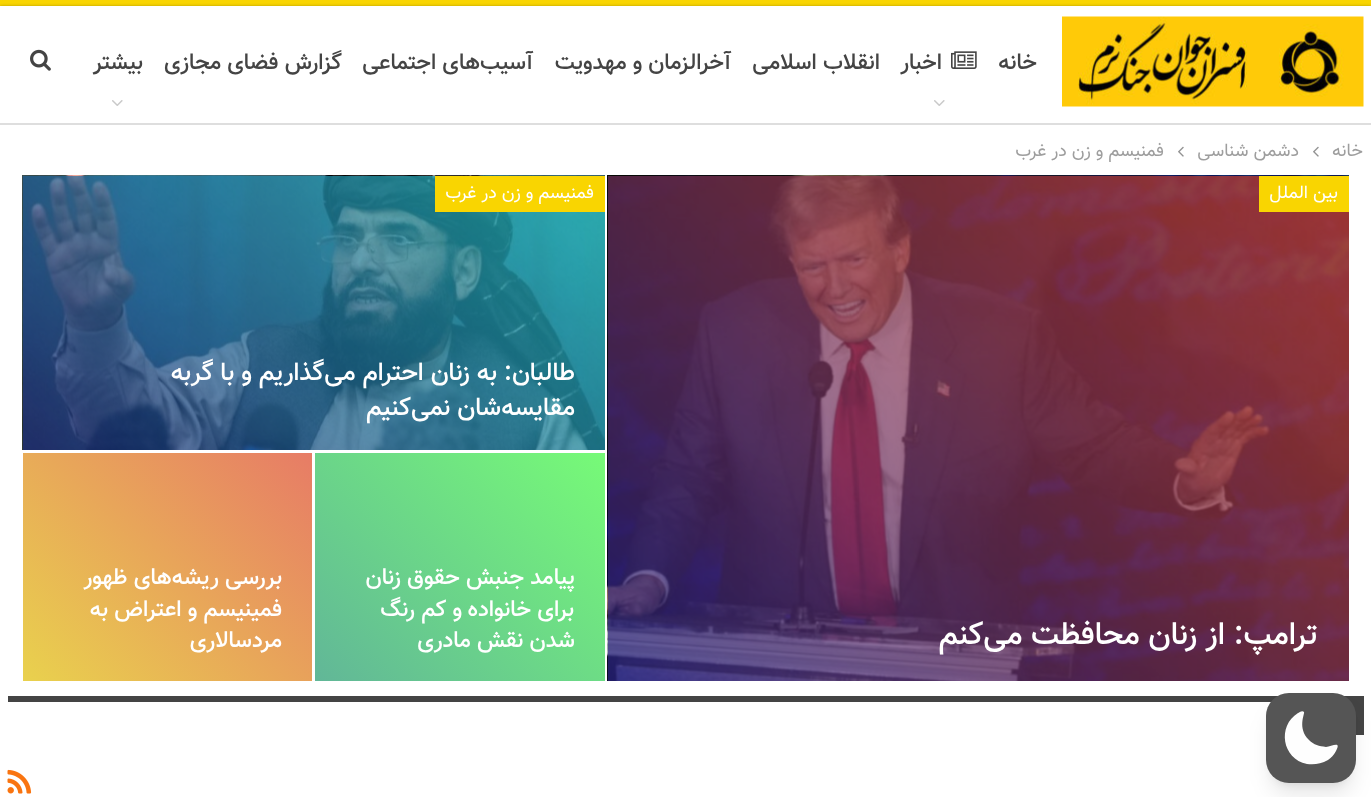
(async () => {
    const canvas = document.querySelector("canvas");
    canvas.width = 1371;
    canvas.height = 797;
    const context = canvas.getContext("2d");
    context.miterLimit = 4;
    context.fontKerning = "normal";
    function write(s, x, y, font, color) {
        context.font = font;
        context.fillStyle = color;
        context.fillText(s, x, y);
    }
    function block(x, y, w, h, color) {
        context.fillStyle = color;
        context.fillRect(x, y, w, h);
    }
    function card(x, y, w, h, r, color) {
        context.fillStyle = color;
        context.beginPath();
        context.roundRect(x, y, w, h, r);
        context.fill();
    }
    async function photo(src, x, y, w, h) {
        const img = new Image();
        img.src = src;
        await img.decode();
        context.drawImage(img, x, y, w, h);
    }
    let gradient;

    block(0, 0, 1371, 797, "rgb(249, 213, 1)");
    context.fillStyle = "rgba(0, 0, 0, 0.27)";
    context.filter = "blur(1.5px)";
    context.beginPath();
    context.rect(0, 6, 1371, 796);
    context.fill();
    context.filter = "none";
    block(0, 6, 1371, 791, "rgb(255, 255, 255)");
    block(0, 123, 1371, 2, "rgb(222, 222, 222)");
    await photo("media/1.png", 1062, 16, 302, 91);
    context.direction = "rtl";
    write("خانه", 1037, 69, "500 22.5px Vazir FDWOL", "rgb(68, 68, 68)");
    await photo("media/2.png", 951, 51, 26, 18);
    write("اخبار", 942, 69, "500 22.5px Vazir FDWOL", "rgb(68, 68, 68)");
    await photo("media/3.png", 934, 100, 11, 6);
    write("انقلاب اسلامی", 880, 69, "500 22.5px Vazir FDWOL", "rgb(68, 68, 68)");
    write("آخرالزمان و مهدویت", 731, 69, "500 22.5px Vazir FDWOL", "rgb(68, 68, 68)");
    write("آسیب‌های اجتماعی", 533, 69, "500 22.5px Vazir FDWOL", "rgb(68, 68, 68)");
    write("گزارش فضای مجازی", 342, 69, "500 22.5px Vazir FDWOL", "rgb(68, 68, 68)");
    write("بیشتر", 143, 69, "500 22.5px Vazir FDWOL", "rgb(68, 68, 68)");
    await photo("media/3.png", 112, 100, 11, 6);
    await photo("media/4.png", 30, 49, 21, 22);
    write("خانه", 1363, 156, "18px Vazir FDWOL", "rgb(158, 158, 158)");
    await photo("media/5.png", 1313, 146, 6, 11);
    write("دشمن شناسی", 1299, 156, "18px Vazir FDWOL", "rgb(158, 158, 158)");
    await photo("media/5.png", 1178, 146, 6, 11);
    write("فمنیسم و زن در غرب", 1164, 156, "18px Vazir FDWOL", "rgb(158, 158, 158)");
    await photo("media/6.png", 607, 175, 742, 506);
    block(1259, 176, 90, 36, "rgb(249, 213, 1)");
    write("بین الملل", 1338, 198, "18px Vazir FDWOL", "rgb(255, 255, 255)");
    write("ترامپ: از زنان محافظت می‌کنم", 1318, 644, "500 31.5px Vazir FDWOL", "rgb(255, 255, 255)");
    await photo("media/7.png", 22, 175, 583, 275);
    block(435, 176, 170, 36, "rgb(249, 213, 1)");
    write("فمنیسم و زن در غرب", 594, 198, "18px Vazir FDWOL", "rgb(255, 255, 255)");
    write("طالبان: به زنان احترام می‌گذاریم و با گربه", 575, 380, "500 25.25px Vazir FDWOL", "rgb(255, 255, 255)");
    write("مقایسه‌شان نمی‌کنیم", 575, 415, "500 25.25px Vazir FDWOL", "rgb(255, 255, 255)");
    gradient = context.createLinearGradient(328, 699, 591, 435);
    gradient.addColorStop(0, "rgb(97, 182, 152)");
    gradient.addColorStop(1, "rgb(119, 251, 119)");
    context.fillStyle = gradient;
    context.fillRect(315, 453, 290, 228);
    write("پیامد جنبش حقوق زنان", 575, 584, "500 22.75px Vazir FDWOL", "rgb(255, 255, 255)");
    write("برای خانواده", 574, 616, "500 22.75px Vazir FDWOL", "rgb(255, 255, 255)");
    write("و کم رنگ", 462, 616, "500 22.75px Vazir FDWOL", "rgb(255, 255, 255)");
    write("شدن نقش مادری", 575, 647, "500 22.75px Vazir FDWOL", "rgb(255, 255, 255)");
    gradient = context.createLinearGradient(36, 699, 299, 435);
    gradient.addColorStop(0, "rgb(233, 210, 77)");
    gradient.addColorStop(1, "rgb(231, 123, 102)");
    context.fillStyle = gradient;
    context.fillRect(23, 453, 289, 228);
    write("بررسی ریشه‌های ظهور", 282, 584, "500 22.75px Vazir FDWOL", "rgb(255, 255, 255)");
    write("فمینیسم و اعتراض به", 282, 616, "500 22.75px Vazir FDWOL", "rgb(255, 255, 255)");
    write("مردسالاری", 282, 647, "500 22.75px Vazir FDWOL", "rgb(255, 255, 255)");
    block(1271, 696, 93, 39, "rgb(68, 68, 68)");
    block(8, 696, 1263, 6, "rgb(68, 68, 68)");
    await photo("media/8.png", 7, 769, 25, 25);
    context.fillStyle = "rgba(0, 0, 0, 0.1)";
    context.filter = "blur(4.5px)";
    context.beginPath();
    context.roundRect(1272, 705, 78, 78, 17);
    context.fill();
    context.filter = "none";
    context.filter = "blur(11px)";
    context.beginPath();
    context.roundRect(1271, 713, 81, 81, 18);
    context.fill();
    context.filter = "none";
    card(1266, 693, 90, 90, 23, "rgb(85, 85, 85)");
    context.fillStyle = "rgb(254, 254, 254)";
    context.beginPath();
    context.moveTo(1304, 712);
    context.bezierCurveTo(1305, 714, 1297, 728, 1309, 740);
    context.bezierCurveTo(1314, 745, 1319, 746, 1326, 747);
    context.bezierCurveTo(1331, 747, 1342, 740, 1336, 751);
    context.bezierCurveTo(1334, 755, 1331, 758, 1328, 760);
    context.bezierCurveTo(1321, 764, 1314, 765, 1307, 764);
    context.bezierCurveTo(1282, 759, 1277, 726, 1298, 713);
    context.bezierCurveTo(1299, 713, 1302, 710, 1304, 712);
    context.closePath();
    context.fill("evenodd");
})();
